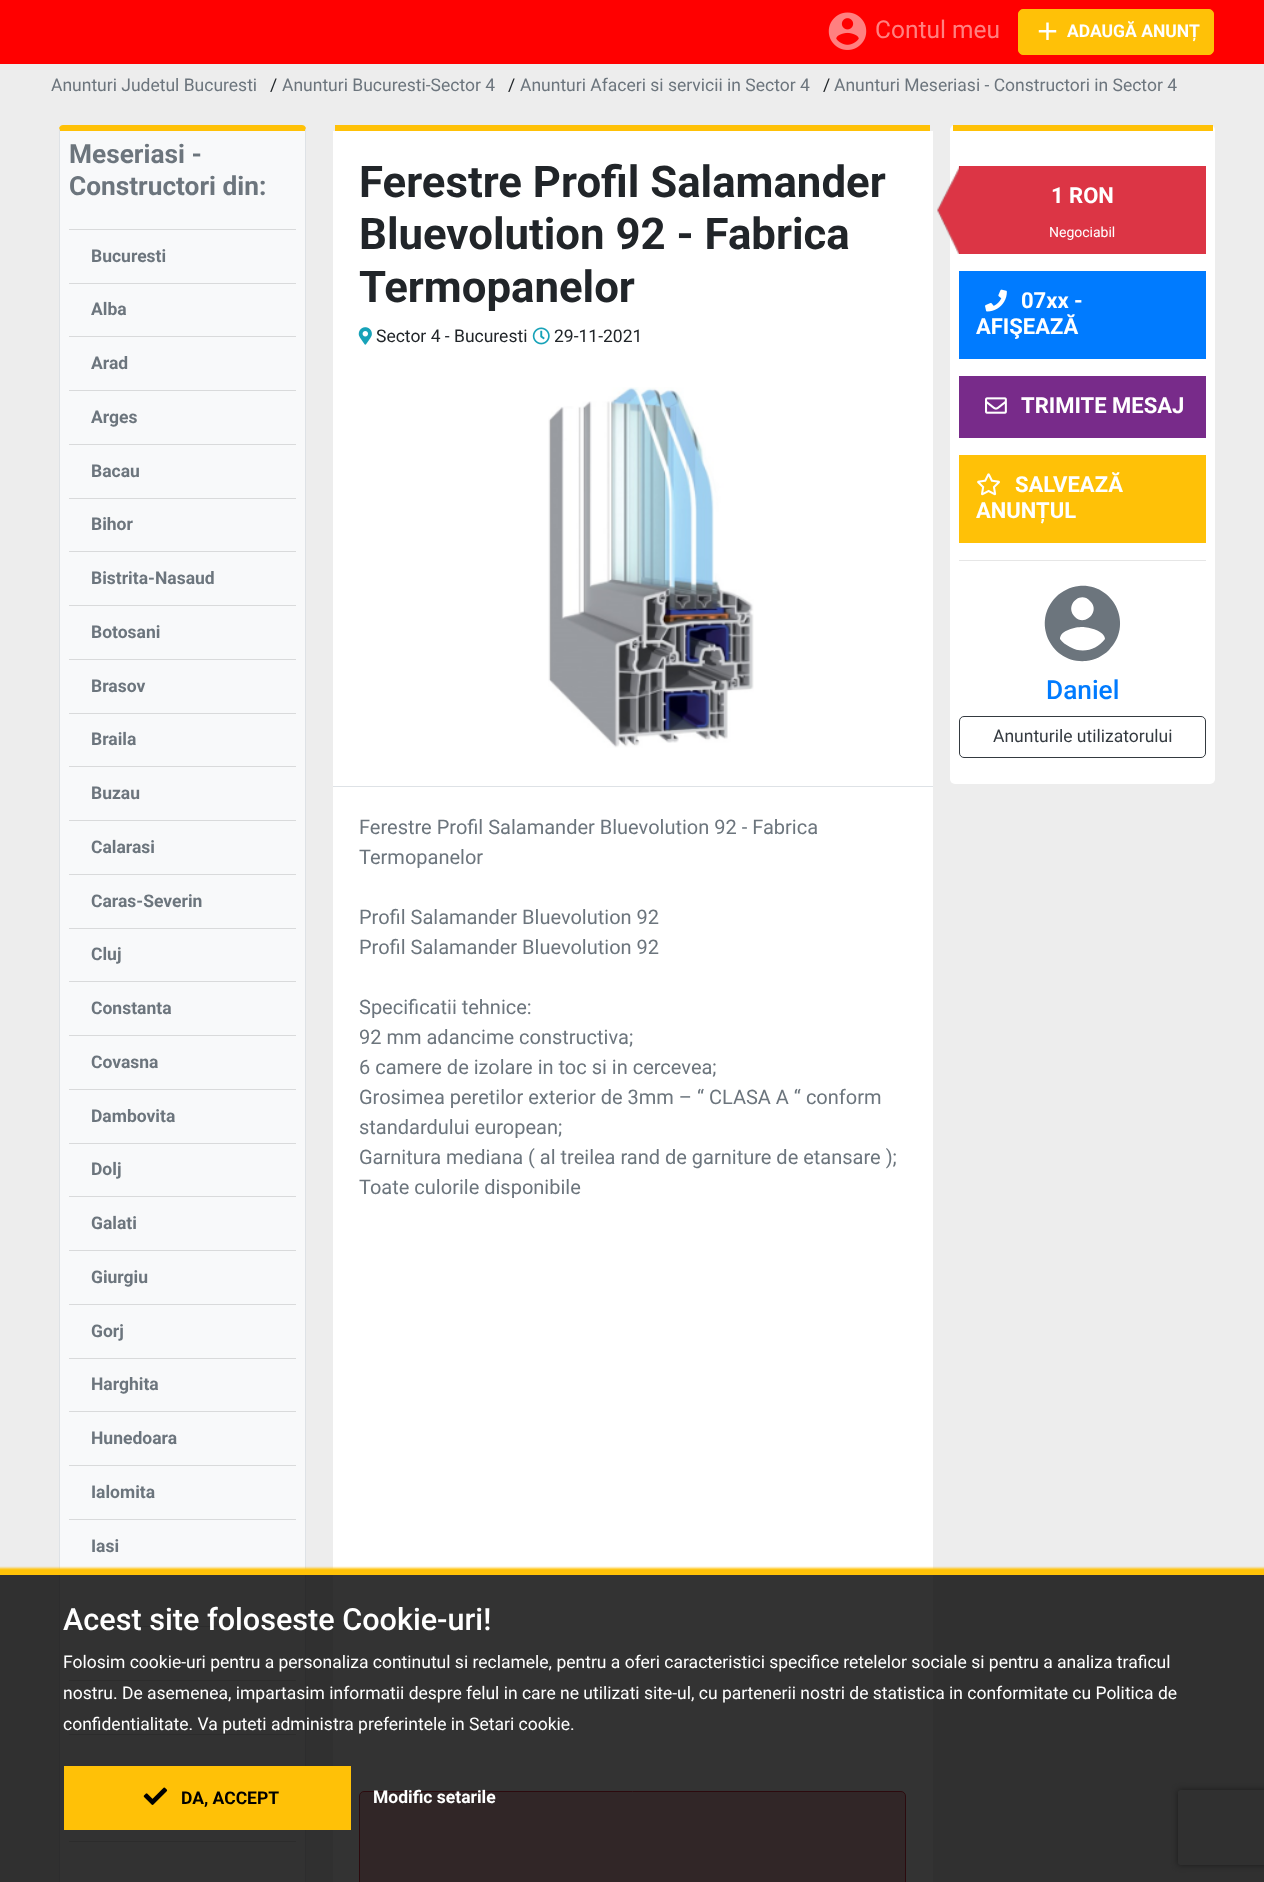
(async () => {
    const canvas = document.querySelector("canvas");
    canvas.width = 1264;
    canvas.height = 1882;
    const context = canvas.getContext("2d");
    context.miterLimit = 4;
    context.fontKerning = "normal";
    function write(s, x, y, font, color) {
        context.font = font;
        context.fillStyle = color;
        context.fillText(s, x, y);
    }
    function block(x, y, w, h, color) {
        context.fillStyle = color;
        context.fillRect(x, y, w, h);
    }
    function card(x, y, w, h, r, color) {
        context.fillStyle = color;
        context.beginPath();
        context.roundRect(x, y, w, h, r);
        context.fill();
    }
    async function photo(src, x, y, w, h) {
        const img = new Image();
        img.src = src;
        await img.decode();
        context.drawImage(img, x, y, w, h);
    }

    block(0, 0, 1264, 1882, "rgb(237, 237, 237)");
    block(0, 0, 1264, 64, "rgb(255, 0, 0)");
    await photo("media/1.png", 828, 12, 39, 38);
    write("Contul meu", 875, 38, "24.5px Roboto", "rgb(255, 128, 128)");
    context.fillStyle = "rgb(255, 193, 7)";
    context.beginPath();
    context.roundRect(1018.5, 9.5, 195, 45, 4.5);
    context.fill();
    context.strokeStyle = "rgb(255, 193, 7)";
    context.stroke();
    await photo("media/2.png", 1038, 22, 19, 18);
    write("ADAUGĂ ANUNȚ", 1067, 37, "bold 17.5px Roboto", "rgb(255, 255, 255)");
    write("Anunturi Judetul Bucuresti", 51, 91, "17.5px Roboto", "rgb(108, 117, 125)");
    write("/", 270, 91, "17.5px Roboto", "rgb(33, 37, 41)");
    write("Anunturi Bucuresti-Sector 4", 282, 91, "17.5px Roboto", "rgb(108, 117, 125)");
    write("/", 508, 91, "17.5px Roboto", "rgb(33, 37, 41)");
    write("Anunturi Afaceri si servicii in Sector 4", 520, 91, "17.5px Roboto", "rgb(108, 117, 125)");
    write("/", 823, 91, "17.5px Roboto", "rgb(33, 37, 41)");
    write("Anunturi Meseriasi - Constructori in Sector 4", 834, 91, "17.5px Roboto", "rgb(108, 117, 125)");
    context.fillStyle = "rgb(248, 249, 250)";
    context.beginPath();
    context.moveTo(63, 131);
    context.lineTo(305, 131);
    context.lineTo(305, 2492);
    context.bezierCurveTo(305, 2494, 304, 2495, 302, 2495);
    context.lineTo(63, 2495);
    context.bezierCurveTo(61, 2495, 60, 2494, 60, 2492);
    context.lineTo(60, 131);
    context.closePath();
    context.fill();
    context.fillStyle = "rgb(255, 193, 7)";
    context.beginPath();
    context.moveTo(63, 125);
    context.bezierCurveTo(61, 125, 60, 126, 59, 128);
    context.lineTo(60, 131);
    context.lineTo(305, 131);
    context.lineTo(306, 128);
    context.bezierCurveTo(305, 126, 304, 125, 302, 125);
    context.closePath();
    context.fill();
    context.fillStyle = "rgb(222, 226, 230)";
    context.beginPath();
    context.moveTo(306, 128);
    context.lineTo(306, 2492);
    context.lineTo(305, 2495);
    context.lineTo(304, 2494);
    context.lineTo(305, 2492);
    context.lineTo(305, 131);
    context.closePath();
    context.fill();
    context.beginPath();
    context.moveTo(59, 128);
    context.lineTo(59, 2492);
    context.lineTo(60, 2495);
    context.lineTo(61, 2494);
    context.lineTo(60, 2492);
    context.lineTo(60, 131);
    context.closePath();
    context.fill();
    write("Meseriasi -", 69, 163, "bold 26.25px Roboto", "rgb(108, 117, 125)");
    write("Constructori din:", 69, 195, "bold 26.25px Roboto", "rgb(108, 117, 125)");
    block(69, 229, 227, 1, "rgb(217, 218, 219)");
    write("Bucuresti", 91, 262, "bold 17.5px Roboto", "rgb(108, 117, 125)");
    block(69, 283, 227, 1, "rgb(217, 218, 219)");
    write("Alba", 91, 315, "bold 17.5px Roboto", "rgb(108, 117, 125)");
    block(69, 336, 227, 1, "rgb(217, 218, 219)");
    write("Arad", 91, 369, "bold 17.5px Roboto", "rgb(108, 117, 125)");
    block(69, 390, 227, 1, "rgb(217, 218, 219)");
    write("Arges", 91, 423, "bold 17.5px Roboto", "rgb(108, 117, 125)");
    block(69, 444, 227, 1, "rgb(217, 218, 219)");
    write("Bacau", 91, 477, "bold 17.5px Roboto", "rgb(108, 117, 125)");
    block(69, 498, 227, 1, "rgb(217, 218, 219)");
    write("Bihor", 91, 530, "bold 17.5px Roboto", "rgb(108, 117, 125)");
    block(69, 551, 227, 1, "rgb(217, 218, 219)");
    write("Bistrita-Nasaud", 91, 584, "bold 17.5px Roboto", "rgb(108, 117, 125)");
    block(69, 605, 227, 1, "rgb(217, 218, 219)");
    write("Botosani", 91, 638, "bold 17.5px Roboto", "rgb(108, 117, 125)");
    block(69, 659, 227, 1, "rgb(217, 218, 219)");
    write("Brasov", 91, 692, "bold 17.5px Roboto", "rgb(108, 117, 125)");
    block(69, 713, 227, 1, "rgb(217, 218, 219)");
    write("Braila", 91, 745, "bold 17.5px Roboto", "rgb(108, 117, 125)");
    block(69, 766, 227, 1, "rgb(217, 218, 219)");
    write("Buzau", 91, 799, "bold 17.5px Roboto", "rgb(108, 117, 125)");
    block(69, 820, 227, 1, "rgb(217, 218, 219)");
    write("Calarasi", 91, 853, "bold 17.5px Roboto", "rgb(108, 117, 125)");
    block(69, 874, 227, 1, "rgb(217, 218, 219)");
    write("Caras-Severin", 91, 907, "bold 17.5px Roboto", "rgb(108, 117, 125)");
    block(69, 928, 227, 1, "rgb(217, 218, 219)");
    write("Cluj", 91, 960, "bold 17.5px Roboto", "rgb(108, 117, 125)");
    block(69, 981, 227, 1, "rgb(217, 218, 219)");
    write("Constanta", 91, 1014, "bold 17.5px Roboto", "rgb(108, 117, 125)");
    block(69, 1035, 227, 1, "rgb(217, 218, 219)");
    write("Covasna", 91, 1068, "bold 17.5px Roboto", "rgb(108, 117, 125)");
    block(69, 1089, 227, 1, "rgb(217, 218, 219)");
    write("Dambovita", 91, 1122, "bold 17.5px Roboto", "rgb(108, 117, 125)");
    block(69, 1143, 227, 1, "rgb(217, 218, 219)");
    write("Dolj", 91, 1175, "bold 17.5px Roboto", "rgb(108, 117, 125)");
    block(69, 1196, 227, 1, "rgb(217, 218, 219)");
    write("Galati", 91, 1229, "bold 17.5px Roboto", "rgb(108, 117, 125)");
    block(69, 1250, 227, 1, "rgb(217, 218, 219)");
    write("Giurgiu", 91, 1283, "bold 17.5px Roboto", "rgb(108, 117, 125)");
    block(69, 1304, 227, 1, "rgb(217, 218, 219)");
    write("Gorj", 91, 1337, "bold 17.5px Roboto", "rgb(108, 117, 125)");
    block(69, 1358, 227, 1, "rgb(217, 218, 219)");
    write("Harghita", 91, 1390, "bold 17.5px Roboto", "rgb(108, 117, 125)");
    block(69, 1411, 227, 1, "rgb(217, 218, 219)");
    write("Hunedoara", 91, 1444, "bold 17.5px Roboto", "rgb(108, 117, 125)");
    block(69, 1465, 227, 1, "rgb(217, 218, 219)");
    write("Ialomita", 91, 1498, "bold 17.5px Roboto", "rgb(108, 117, 125)");
    block(69, 1519, 227, 1, "rgb(217, 218, 219)");
    write("Iasi", 91, 1552, "bold 17.5px Roboto", "rgb(108, 117, 125)");
    block(69, 1626, 227, 1, "rgb(217, 218, 219)");
    block(69, 1680, 227, 1, "rgb(217, 218, 219)");
    block(69, 1734, 227, 1, "rgb(217, 218, 219)");
    block(69, 1841, 227, 1, "rgb(217, 218, 219)");
    block(335, 125, 595, 6, "rgb(255, 193, 7)");
    block(333, 131, 600, 655, "rgb(255, 255, 255)");
    write("Ferestre Profil Salamander", 359, 197, "bold 43.75px Roboto", "rgb(33, 37, 41)");
    write("Bluevolution 92 - Fabrica", 359, 249, "bold 43.75px Roboto", "rgb(33, 37, 41)");
    write("Termopanelor", 359, 302, "bold 43.75px Roboto", "rgb(33, 37, 41)");
    await photo("media/3.png", 358, 327, 14, 18);
    write("Sector 4 - Bucuresti", 376, 342, "17.5px Roboto", "rgb(33, 37, 41)");
    await photo("media/4.png", 532, 327, 18, 18);
    write("29-11-2021", 554, 342, "17.5px Roboto", "rgb(33, 37, 41)");
    await photo("media/5.png", 548, 387, 206, 361);
    block(333, 787, 600, 1095, "rgb(255, 255, 255)");
    block(333, 786, 600, 1, "rgb(222, 226, 230)");
    write("Ferestre Profil Salamander Bluevolution 92 - Fabrica", 359, 834, "20px Roboto", "rgb(108, 117, 125)");
    write("Termopanelor", 359, 864, "20px Roboto", "rgb(108, 117, 125)");
    write("Profil Salamander Bluevolution 92", 359, 924, "20px Roboto", "rgb(108, 117, 125)");
    write("Profil Salamander Bluevolution 92", 359, 954, "20px Roboto", "rgb(108, 117, 125)");
    write("Specificatii tehnice:", 359, 1014, "20px Roboto", "rgb(108, 117, 125)");
    write("92 mm adancime constructiva;", 359, 1044, "20px Roboto", "rgb(108, 117, 125)");
    write("6 camere de izolare in toc si in cercevea;", 359, 1074, "20px Roboto", "rgb(108, 117, 125)");
    write("Grosimea peretilor exterior de 3mm – “ CLASA A “ conform", 359, 1104, "20px Roboto", "rgb(108, 117, 125)");
    write("standardului european;", 359, 1134, "20px Roboto", "rgb(108, 117, 125)");
    write("Garnitura mediana ( al treilea rand de garniture de etansare );", 359, 1164, "20px Roboto", "rgb(108, 117, 125)");
    write("Toate culorile disponibile", 359, 1194, "20px Roboto", "rgb(108, 117, 125)");
    context.fillStyle = "rgb(243, 190, 195)";
    context.beginPath();
    context.roundRect(359.5, 1791.5, 546, 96, 4.5);
    context.fill();
    context.strokeStyle = "rgb(220, 53, 69)";
    context.stroke();
    card(950, 125, 265, 659, 5, "rgb(255, 255, 255)");
    block(953, 125, 260, 6, "rgb(255, 193, 7)");
    block(959, 166, 247, 88, "rgb(220, 53, 69)");
    await photo("media/6.png", 937, 166, 23, 88);
    write("1 RON", 1051, 203, "bold 22px Roboto", "rgb(255, 255, 255)");
    write("Negociabil", 1049, 237, "14px Roboto", "rgb(255, 255, 255)");
    block(959, 271, 247, 88, "rgb(0, 123, 255)");
    await photo("media/7.png", 985, 289, 22, 23);
    write("07xx -", 1021, 308, "bold 22px Roboto", "rgb(255, 255, 255)");
    write("AFIŞEAZĂ", 976, 334, "bold 22px Roboto", "rgb(255, 255, 255)");
    block(959, 376, 247, 62, "rgb(120, 43, 138)");
    await photo("media/8.png", 985, 397, 22, 17);
    write("TRIMITE MESAJ", 1021, 413, "bold 22px Roboto", "rgb(255, 255, 255)");
    block(959, 455, 247, 88, "rgb(255, 193, 7)");
    await photo("media/9.png", 977, 473, 23, 23);
    write("SALVEAZĂ", 1015, 492, "bold 22px Roboto", "rgb(255, 255, 255)");
    write("ANUNȚUL", 976, 518, "bold 22px Roboto", "rgb(255, 255, 255)");
    block(959, 560, 247, 1, "rgb(230, 230, 230)");
    context.fillStyle = "rgb(108, 117, 125)";
    context.beginPath();
    context.moveTo(1070, 647);
    context.bezierCurveTo(1082, 654, 1097, 650, 1105, 639);
    context.bezierCurveTo(1105, 631, 1089, 627, 1082, 627);
    context.bezierCurveTo(1076, 627, 1060, 630, 1060, 639);
    context.bezierCurveTo(1062, 642, 1066, 645, 1070, 647);
    context.closePath();
    context.moveTo(1090, 601);
    context.bezierCurveTo(1080, 590, 1064, 606, 1075, 617);
    context.bezierCurveTo(1085, 627, 1101, 611, 1090, 601);
    context.closePath();
    context.moveTo(1056, 597);
    context.bezierCurveTo(1062, 591, 1070, 587, 1079, 586);
    context.bezierCurveTo(1114, 583, 1134, 625, 1109, 650);
    context.bezierCurveTo(1103, 656, 1095, 660, 1086, 661);
    context.bezierCurveTo(1051, 664, 1031, 622, 1056, 597);
    context.closePath();
    context.fill();
    write("Daniel", 1046, 699, "500 26.25px Roboto", "rgb(0, 123, 255)");
    context.beginPath();
    context.roundRect(959.5, 716.5, 246, 41, 4.5);
    context.strokeStyle = "rgb(52, 58, 64)";
    context.stroke();
    write("Anunturile utilizatorului", 993, 742, "17.5px Roboto", "rgb(52, 58, 64)");
    context.save();
    context.beginPath();
    context.rect(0, 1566, 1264, 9);
    context.clip();
    context.fillStyle = "rgb(255, 193, 7)";
    context.filter = "blur(1px)";
    context.beginPath();
    context.rect(-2, 1568, 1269, 312);
    context.fill();
    context.filter = "none";
    context.restore();
    context.save();
    context.beginPath();
    context.moveTo(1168, 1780);
    context.lineTo(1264, 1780);
    context.lineTo(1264, 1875);
    context.lineTo(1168, 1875);
    context.closePath();
    context.moveTo(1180.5, 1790);
    context.lineTo(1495.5, 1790);
    context.bezierCurveTo(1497, 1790, 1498, 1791, 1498, 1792.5);
    context.lineTo(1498, 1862.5);
    context.bezierCurveTo(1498, 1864, 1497, 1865, 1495.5, 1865);
    context.lineTo(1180.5, 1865);
    context.bezierCurveTo(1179, 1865, 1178, 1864, 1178, 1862.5);
    context.lineTo(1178, 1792.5);
    context.bezierCurveTo(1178, 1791, 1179, 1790, 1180.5, 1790);
    context.closePath();
    context.clip("evenodd");
    context.fillStyle = "rgb(128, 128, 128)";
    context.filter = "blur(3px)";
    context.beginPath();
    context.roundRect(1178, 1790, 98, 75, 2.5);
    context.fill();
    context.filter = "none";
    context.restore();
    block(0, 1575, 1264, 307, "rgba(0, 0, 0, 0.8)");
    write("Acest site foloseste Cookie-uri!", 63, 1630, "500 30.6px Roboto", "rgb(255, 255, 255)");
    write("Folosim cookie-uri pentru a personaliza continutul si reclamele, pentru a oferi caracteristici specifice retelelor sociale si pentru a analiza traficul", 63, 1668, "17.5px Roboto", "rgb(255, 255, 255)");
    write("nostru. De asemenea, impartasim informatii despre felul in care ne utilizati site-ul, cu partenerii nostri de statistica in conformitate cu Politica de", 63, 1699, "17.5px Roboto", "rgb(255, 255, 255)");
    write("confidentialitate. Va puteti administra preferintele in Setari cookie.", 63, 1730, "17.5px Roboto", "rgb(255, 255, 255)");
    block(64, 1766, 287, 64, "rgb(255, 193, 7)");
    await photo("media/10.png", 143, 1787, 25, 18);
    write("DA, ACCEPT", 181, 1804, "bold 17.5px Roboto", "rgb(0, 0, 0)");
    write("Modific setarile", 373, 1803, "bold 17.5px Roboto", "rgb(255, 255, 255)");
})();
